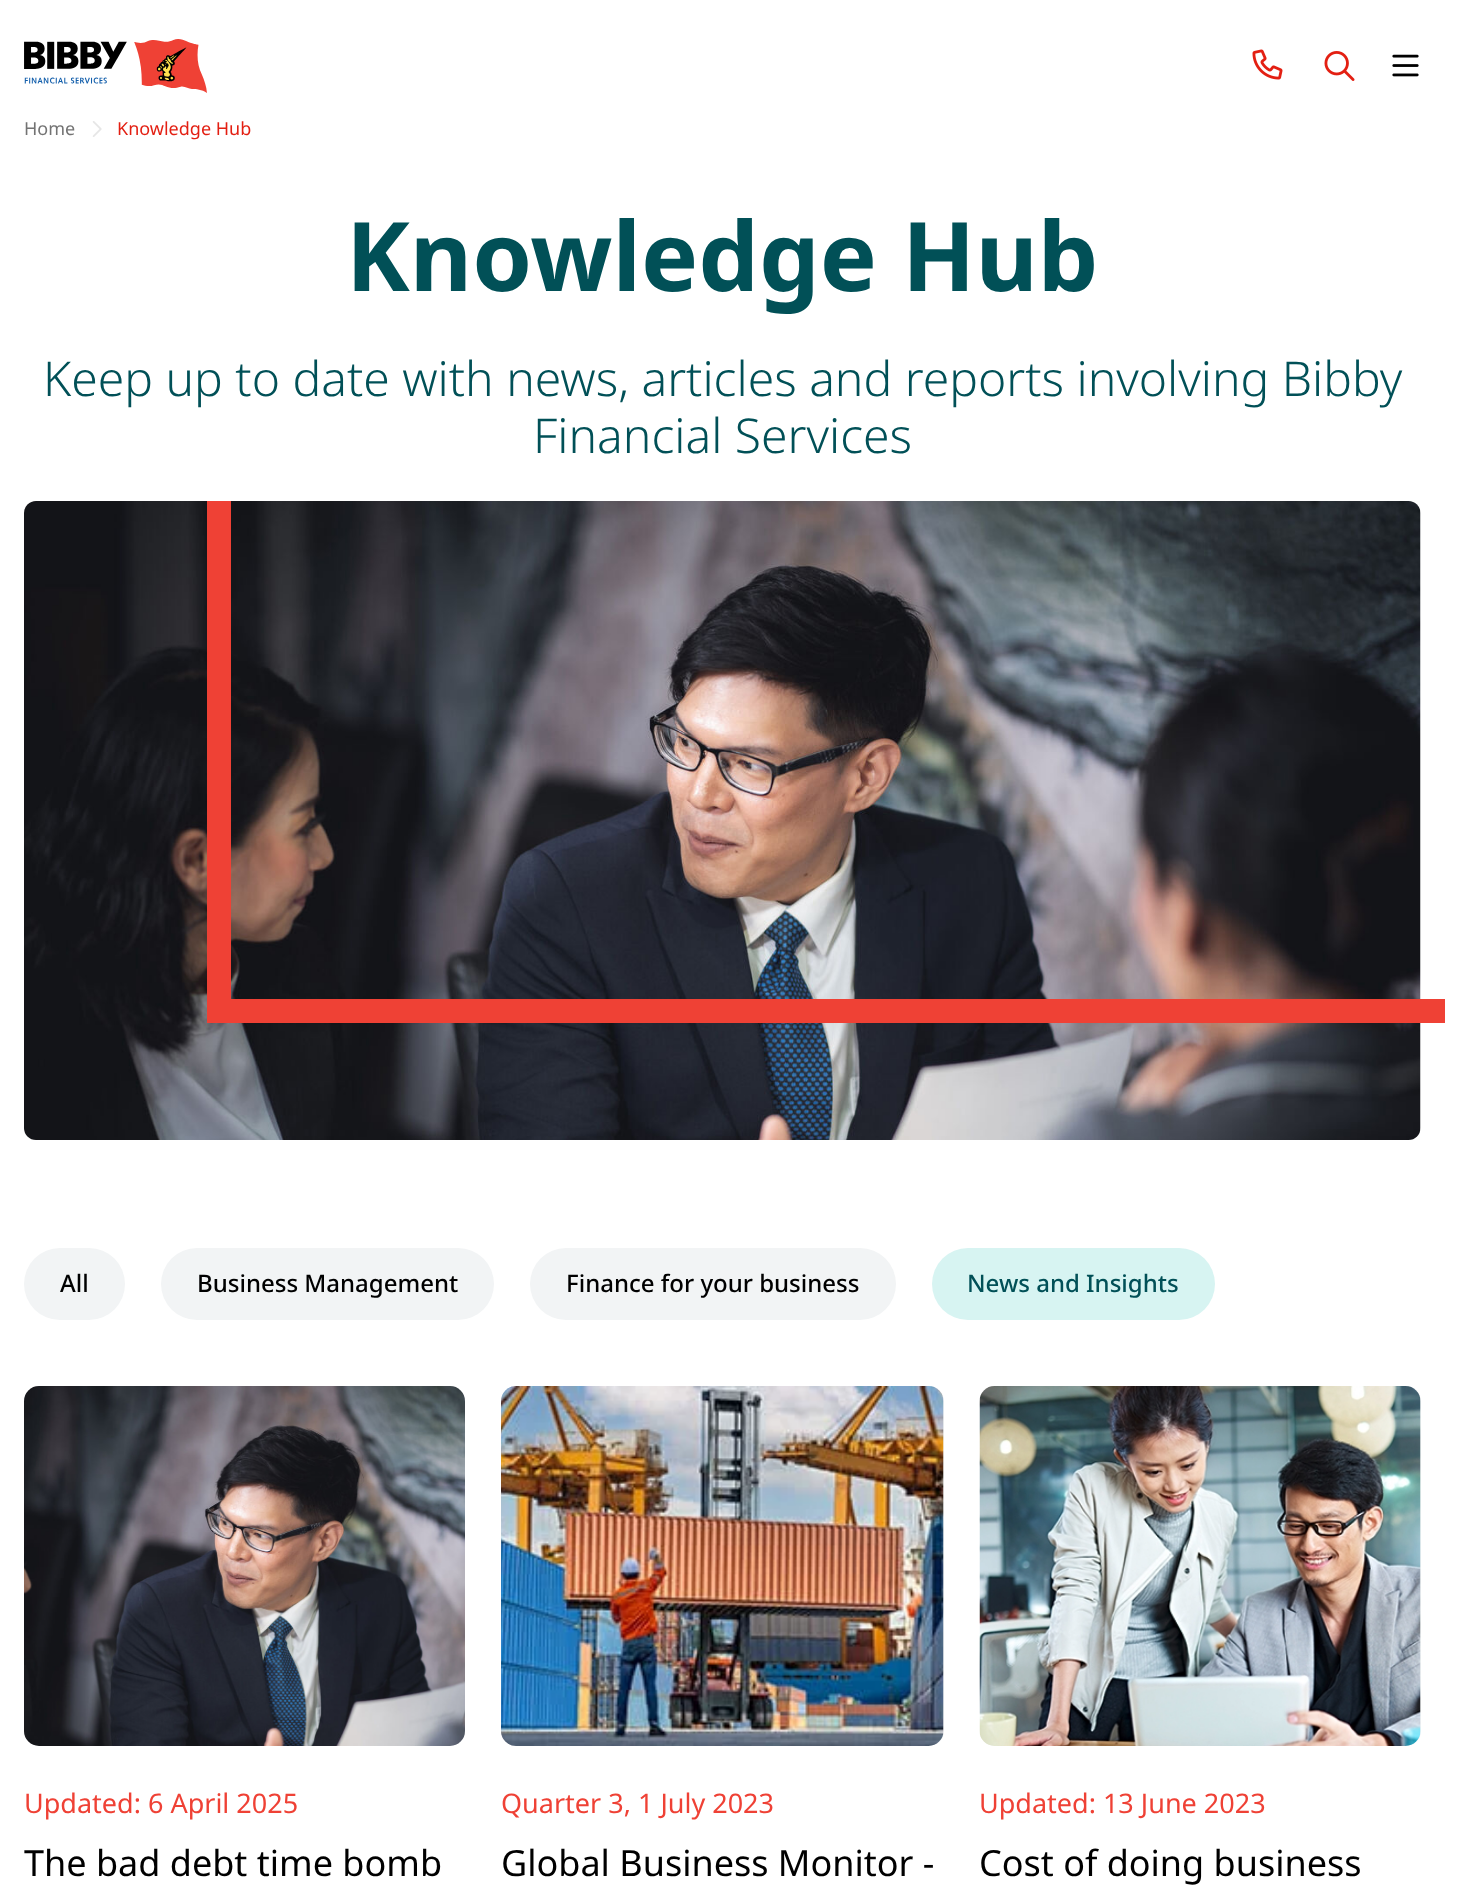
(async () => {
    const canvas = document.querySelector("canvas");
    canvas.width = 1467;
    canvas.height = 1903;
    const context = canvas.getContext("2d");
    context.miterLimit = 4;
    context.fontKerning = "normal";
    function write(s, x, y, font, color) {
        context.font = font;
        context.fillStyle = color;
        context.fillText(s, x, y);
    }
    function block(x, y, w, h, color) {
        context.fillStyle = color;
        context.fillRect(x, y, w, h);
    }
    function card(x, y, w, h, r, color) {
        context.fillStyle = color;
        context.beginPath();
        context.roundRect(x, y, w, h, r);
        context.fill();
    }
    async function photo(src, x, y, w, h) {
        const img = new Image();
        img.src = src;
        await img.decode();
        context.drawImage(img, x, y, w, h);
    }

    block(0, 0, 1467, 1903, "rgb(255, 255, 255)");
    await photo("media/1.png", 24, 39, 183, 54);
    await photo("media/2.png", 1252, 49, 31, 31);
    await photo("media/3.png", 1324, 51, 31, 30);
    await photo("media/4.png", 1392, 54, 27, 23);
    write("Home", 24, 135, "18px Noto Sans", "rgb(115, 115, 115)");
    await photo("media/5.png", 92, 121, 10, 16);
    write("Knowledge Hub", 117, 135, "18px Noto Sans", "rgb(227, 31, 18)");
    write("Knowledge Hub", 346, 291, "bold 96px Noto Sans", "rgb(1, 80, 87)");
    write("Keep up to date with news, articles and reports involving Bibby", 43, 396, "300 48px Noto Sans", "rgb(1, 80, 87)");
    write("Financial Services", 533, 453, "300 48px Noto Sans", "rgb(1, 80, 87)");
    await photo("media/6.png", 24, 501, 1397, 639);
    block(207, 501, 24, 522, "rgb(239, 65, 53)");
    block(231, 999, 1214, 24, "rgb(239, 65, 53)");
    card(24, 1248, 101, 72, 36, "rgb(242, 244, 245)");
    write("All", 60, 1292, "500 24px Noto Sans", "rgb(0, 0, 0)");
    card(161, 1248, 333, 72, 36, "rgb(242, 244, 245)");
    write("Business Management", 197, 1292, "500 24px Noto Sans", "rgb(0, 0, 0)");
    card(530, 1248, 366, 72, 36, "rgb(242, 244, 245)");
    write("Finance for your business", 566, 1292, "500 24px Noto Sans", "rgb(0, 0, 0)");
    card(932, 1248, 283, 72, 36, "rgb(215, 244, 242)");
    write("News and Insights", 967, 1292, "500 24px Noto Sans", "rgb(1, 80, 87)");
    card(24, 1386, 441, 360, 15, "rgb(242, 244, 245)");
    await photo("media/7.png", 24, 1386, 441, 360);
    write("Updated: 6 April 2025", 24, 1813, "27px Noto Sans", "rgb(239, 65, 53)");
    write("The bad debt time bomb", 24, 1876, "36px Noto Sans", "rgb(0, 0, 0)");
    card(501, 1386, 443, 360, 15, "rgb(242, 244, 245)");
    await photo("media/8.png", 501, 1386, 443, 360);
    write("Quarter 3, 1 July 2023", 501, 1813, "27px Noto Sans", "rgb(239, 65, 53)");
    write("Global Business Monitor -", 501, 1876, "36px Noto Sans", "rgb(0, 0, 0)");
    card(980, 1386, 441, 360, 15, "rgb(242, 244, 245)");
    await photo("media/9.png", 979, 1386, 442, 360);
    write("Updated: 13 June 2023", 979, 1813, "27px Noto Sans", "rgb(239, 65, 53)");
    write("Cost of doing business", 979, 1876, "36px Noto Sans", "rgb(0, 0, 0)");
})();
